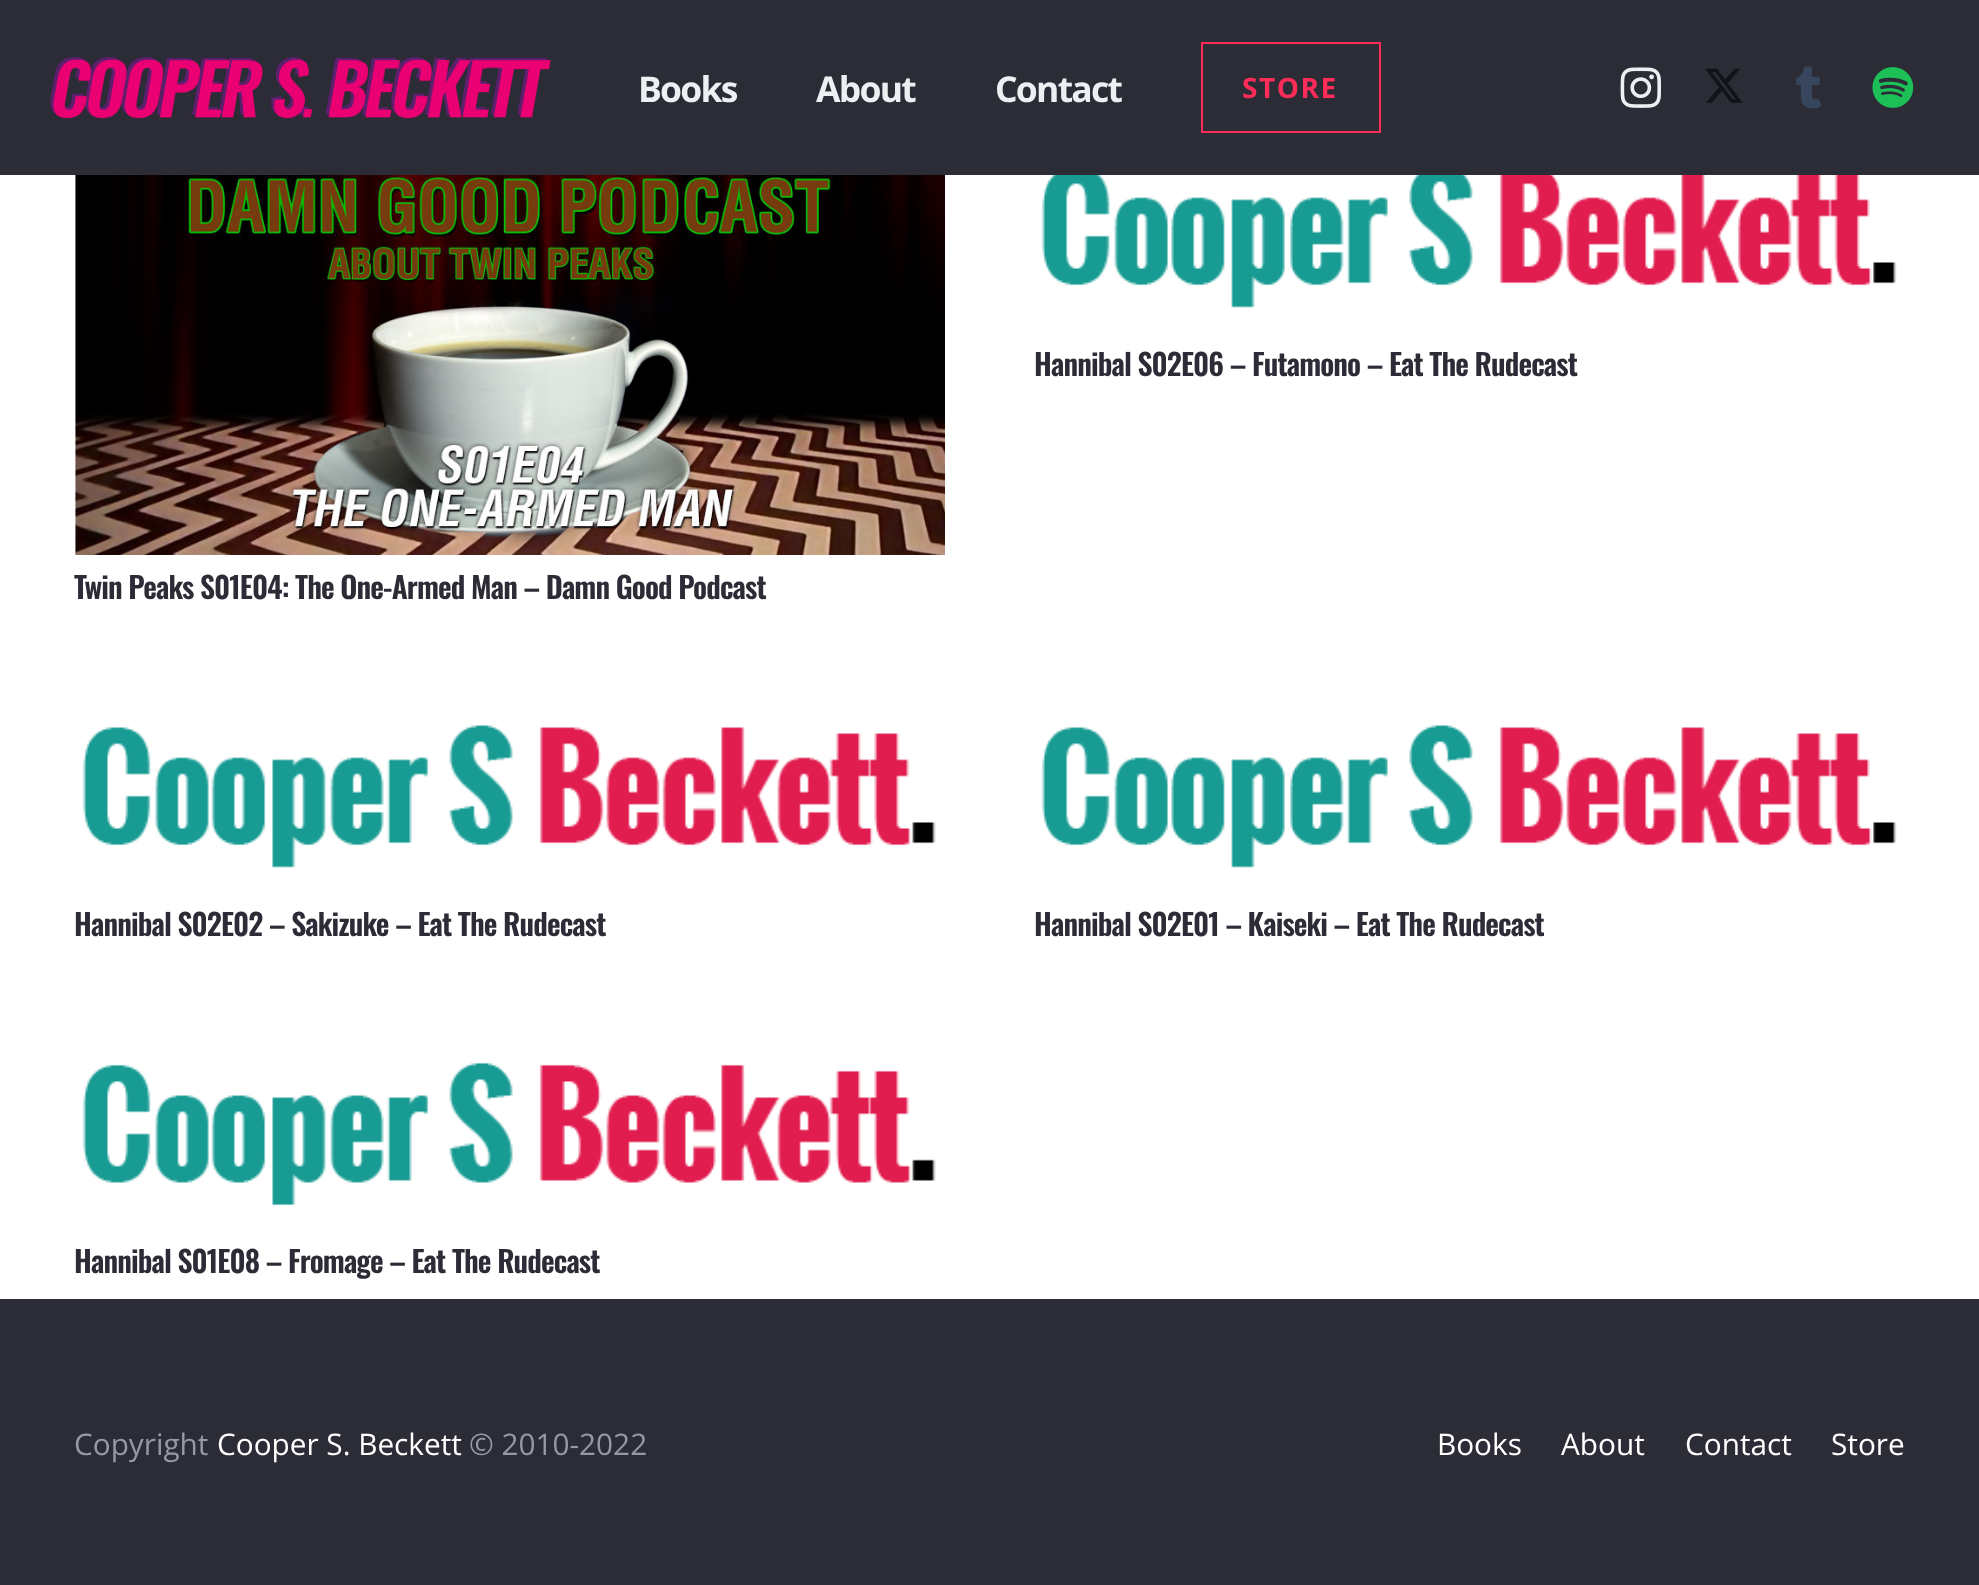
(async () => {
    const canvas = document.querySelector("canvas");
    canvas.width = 1979;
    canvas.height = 1585;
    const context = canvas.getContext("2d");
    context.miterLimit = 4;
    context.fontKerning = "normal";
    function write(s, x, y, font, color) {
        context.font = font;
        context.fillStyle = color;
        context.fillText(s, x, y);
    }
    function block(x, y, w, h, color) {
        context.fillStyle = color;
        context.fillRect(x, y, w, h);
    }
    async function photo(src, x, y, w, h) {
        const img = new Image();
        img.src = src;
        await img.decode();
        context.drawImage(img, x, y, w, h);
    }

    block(0, 0, 1979, 1585, "rgb(255, 255, 255)");
    block(0, 0, 1979, 175, "rgb(43, 44, 54)");
    await photo("media/1.png", 50, 57, 501, 62);
    context.letterSpacing = "-1.75px";
    write("Books", 638, 102, "bold 35.5px Open Sans", "rgb(237, 240, 242)");
    write("About", 816, 102, "bold 35.5px Open Sans", "rgb(237, 240, 242)");
    write("Contact", 995, 102, "bold 35.5px Open Sans", "rgb(237, 240, 242)");
    context.strokeStyle = "rgb(255, 43, 88)";
    context.lineWidth = 2;
    context.strokeRect(1202, 43, 178, 89);
    context.letterSpacing = "1.5px";
    write("STORE", 1242, 98, "bold 28px Open Sans", "rgb(255, 43, 88)");
    await photo("media/2.png", 1620, 67, 41, 41);
    await photo("media/3.png", 1705, 68, 38, 35);
    await photo("media/4.png", 1796, 66, 25, 43);
    await photo("media/5.png", 1872, 67, 42, 41);
    await photo("media/6.png", 1041, 175, 856, 133);
    context.letterSpacing = "-0.9px";
    write("Hannibal S02E06 – Futamono – Eat The Rudecast", 1034, 376, "600 29.75px Oswald", "rgb(43, 44, 54)");
    await photo("media/7.png", 75, 175, 870, 380);
    write("Twin Peaks S01E04: The One-Armed Man – Damn Good Podcast", 74, 599, "600 29.75px Oswald", "rgb(43, 44, 54)");
    await photo("media/8.png", 82, 725, 854, 143);
    write("Hannibal S02E02 – Sakizuke – Eat The Rudecast", 74, 936, "600 29.75px Oswald", "rgb(43, 44, 54)");
    await photo("media/9.png", 1041, 725, 856, 143);
    write("Hannibal S02E01 – Kaiseki – Eat The Rudecast", 1034, 936, "600 29.75px Oswald", "rgb(43, 44, 54)");
    await photo("media/10.png", 82, 1062, 854, 144);
    write("Hannibal S01E08 – Fromage – Eat The Rudecast", 74, 1273, "600 29.75px Oswald", "rgb(43, 44, 54)");
    block(0, 1299, 1979, 286, "rgb(43, 44, 54)");
    context.letterSpacing = "0px";
    write("Copyright", 74, 1455, "29.75px Open Sans", "rgb(150, 152, 163)");
    write("Cooper S. Beckett", 217, 1455, "29.75px Open Sans", "rgb(255, 255, 255)");
    write("© 2010-2022", 469, 1455, "29.75px Open Sans", "rgb(150, 152, 163)");
    write("Books", 1437, 1455, "29.75px Open Sans", "rgb(255, 255, 255)");
    write("About", 1561, 1455, "29.75px Open Sans", "rgb(255, 255, 255)");
    write("Contact", 1685, 1455, "29.75px Open Sans", "rgb(255, 255, 255)");
    write("Store", 1831, 1455, "29.75px Open Sans", "rgb(255, 255, 255)");
})();
